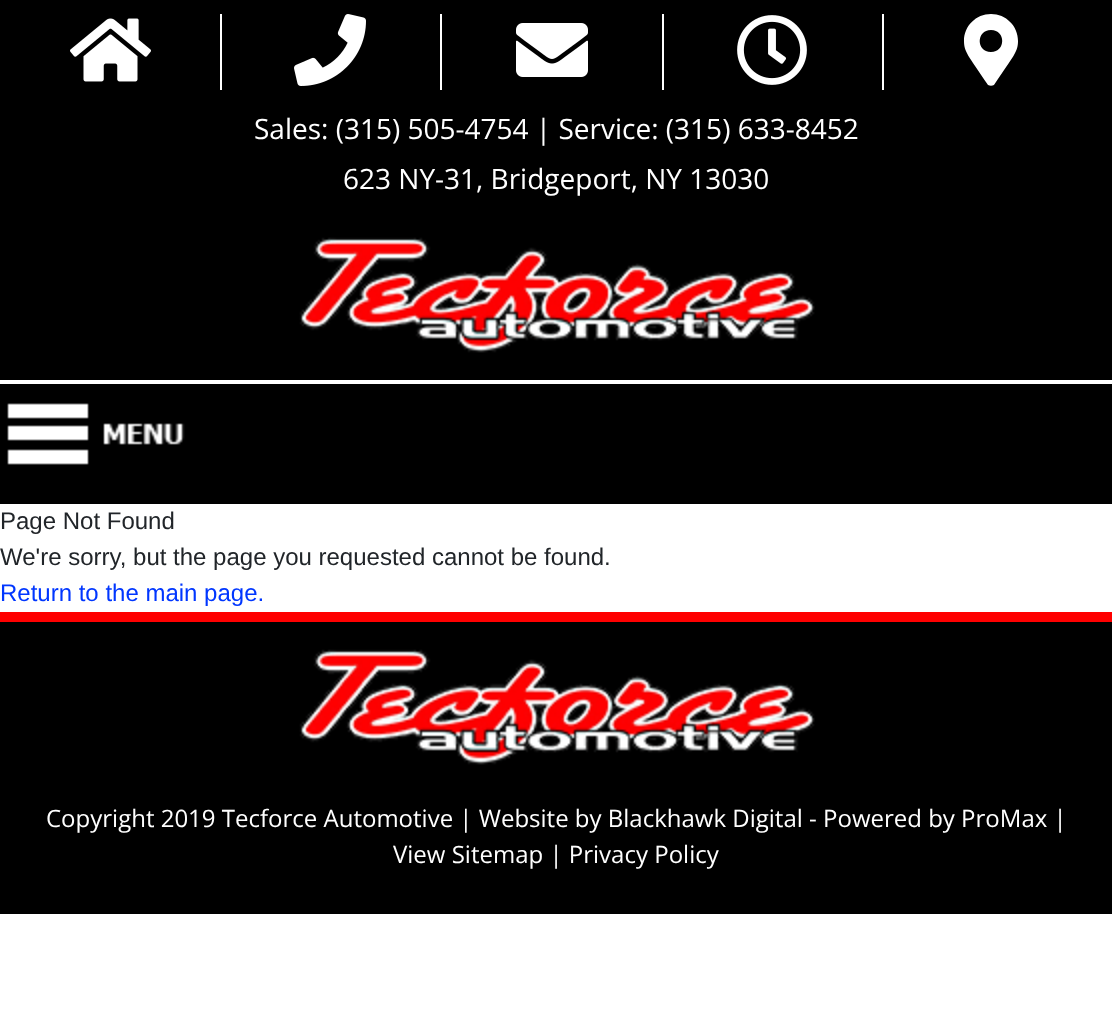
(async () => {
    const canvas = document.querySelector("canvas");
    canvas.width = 1112;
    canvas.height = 1019;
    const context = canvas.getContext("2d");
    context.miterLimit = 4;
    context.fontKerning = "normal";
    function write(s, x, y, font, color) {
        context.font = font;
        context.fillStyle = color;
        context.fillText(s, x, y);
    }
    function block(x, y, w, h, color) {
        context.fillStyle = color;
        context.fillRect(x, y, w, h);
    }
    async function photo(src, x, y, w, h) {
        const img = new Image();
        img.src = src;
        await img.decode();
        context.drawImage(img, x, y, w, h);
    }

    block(0, 0, 1112, 1019, "rgb(255, 255, 255)");
    block(0, 0, 1112, 504, "rgb(0, 0, 0)");
    block(220, 14, 2, 76, "rgb(255, 255, 255)");
    await photo("media/1.png", 70, 18, 81, 64);
    block(440, 14, 2, 76, "rgb(255, 255, 255)");
    await photo("media/2.png", 294, 14, 72, 72);
    block(662, 14, 2, 76, "rgb(255, 255, 255)");
    await photo("media/3.png", 516, 23, 72, 54);
    block(882, 14, 2, 76, "rgb(255, 255, 255)");
    await photo("media/4.png", 737, 15, 70, 70);
    context.beginPath();
    context.moveTo(988, 85);
    context.bezierCurveTo(968, 55, 964, 52, 964, 41);
    context.bezierCurveTo(964, 26, 976, 14, 991, 14);
    context.bezierCurveTo(1006, 14, 1018, 26, 1018, 41);
    context.bezierCurveTo(1018, 52, 1014, 55, 994, 85);
    context.bezierCurveTo(992, 86, 990, 86, 988, 85);
    context.closePath();
    context.moveTo(991, 52);
    context.bezierCurveTo(1006, 52, 1006, 30, 991, 30);
    context.bezierCurveTo(976, 30, 976, 52, 991, 52);
    context.closePath();
    context.fill();
    write("Sales: (315) 505-4754 | Service: (315) 633-8452", 254, 139, "28px Open Sans", "rgb(255, 255, 255)");
    write("623 NY-31, Bridgeport, NY 13030", 343, 189, "28px Open Sans", "rgb(255, 255, 255)");
    await photo("media/5.png", 299, 237, 516, 116);
    block(0, 380, 1112, 4, "rgb(255, 255, 255)");
    await photo("media/6.png", 7, 403, 178, 62);
    write("Page Not Found", 0, 529, "24px Liberation Sans", "rgb(33, 37, 41)");
    write("We're sorry, but the page you requested cannot be found.", 0, 565, "24px Liberation Sans", "rgb(33, 37, 41)");
    write("Return to the main page.", 0, 601, "24px Liberation Sans", "rgb(0, 54, 255)");
    block(0, 622, 1112, 292, "rgb(0, 0, 0)");
    block(0, 612, 1112, 10, "rgb(255, 0, 0)");
    await photo("media/5.png", 299, 649, 516, 116);
    write("Copyright 2019 Tecforce Automotive | Website by Blackhawk Digital - Powered by ProMax |", 46, 827, "24px Open Sans", "rgb(255, 255, 255)");
    write("View Sitemap | Privacy Policy", 393, 863, "24px Open Sans", "rgb(255, 255, 255)");
})();
